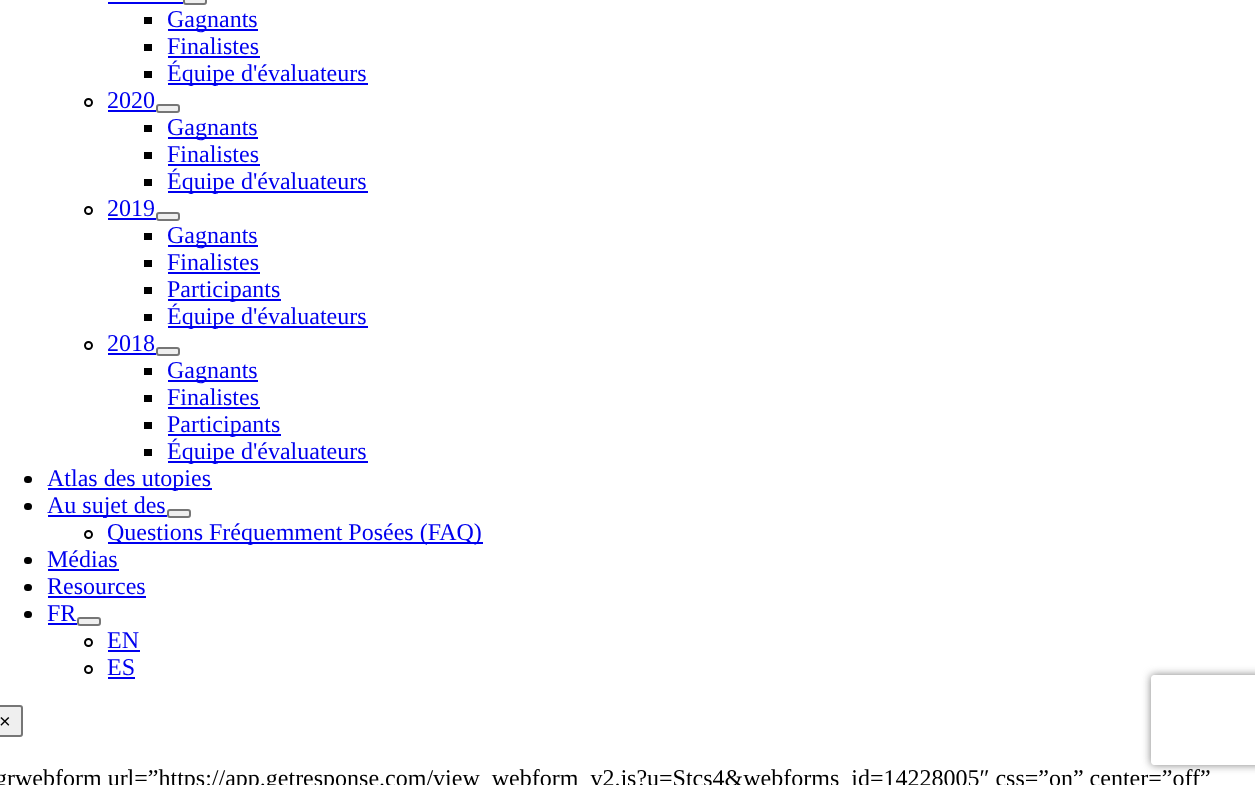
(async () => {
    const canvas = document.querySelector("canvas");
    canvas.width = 1255;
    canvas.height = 785;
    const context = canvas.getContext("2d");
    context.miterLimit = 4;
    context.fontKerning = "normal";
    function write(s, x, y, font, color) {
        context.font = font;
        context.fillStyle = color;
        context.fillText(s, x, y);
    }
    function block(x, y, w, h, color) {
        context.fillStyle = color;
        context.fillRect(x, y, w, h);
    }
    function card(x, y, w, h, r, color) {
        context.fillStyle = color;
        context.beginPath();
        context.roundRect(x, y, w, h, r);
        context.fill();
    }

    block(0, 0, 1255, 785, "rgb(255, 255, 255)");
    block(108, 2, 75, 2, "rgb(0, 0, 238)");
    context.fillStyle = "rgb(239, 239, 239)";
    context.beginPath();
    context.roundRect(184, -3, 22, 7, 2);
    context.fill();
    context.strokeStyle = "rgb(118, 118, 118)";
    context.lineWidth = 2;
    context.stroke();
    block(144, 17, 8, 7, "rgb(0, 0, 0)");
    block(168, 29, 90, 2, "rgb(0, 0, 238)");
    write("Gagnants", 167, 27, "24px Liberation Serif", "rgb(0, 0, 238)");
    block(144, 44, 8, 7, "rgb(0, 0, 0)");
    write("Finalistes", 167, 54, "24px Liberation Serif", "rgb(0, 0, 238)");
    block(168, 56, 92, 2, "rgb(0, 0, 238)");
    block(144, 71, 8, 7, "rgb(0, 0, 0)");
    block(168, 83, 200, 2, "rgb(0, 0, 238)");
    write("Équipe d'évaluateurs", 167, 81, "24px Liberation Serif", "rgb(0, 0, 238)");
    context.beginPath();
    context.arc(88.5, 102.5, 3.5, 0, Math.PI * 2);
    context.strokeStyle = "rgb(0, 0, 0)";
    context.stroke();
    write("2020", 107, 108, "24px Liberation Serif", "rgb(0, 0, 238)");
    block(108, 110, 48, 2, "rgb(0, 0, 238)");
    context.fillStyle = "rgb(239, 239, 239)";
    context.beginPath();
    context.roundRect(157, 105, 22, 7, 2);
    context.fill();
    context.strokeStyle = "rgb(118, 118, 118)";
    context.stroke();
    block(144, 125, 8, 7, "rgb(0, 0, 0)");
    block(168, 137, 90, 2, "rgb(0, 0, 238)");
    write("Gagnants", 167, 135, "24px Liberation Serif", "rgb(0, 0, 238)");
    block(144, 152, 8, 7, "rgb(0, 0, 0)");
    write("Finalistes", 167, 162, "24px Liberation Serif", "rgb(0, 0, 238)");
    block(168, 164, 92, 2, "rgb(0, 0, 238)");
    block(144, 179, 8, 7, "rgb(0, 0, 0)");
    block(168, 191, 200, 2, "rgb(0, 0, 238)");
    write("Équipe d'évaluateurs", 167, 189, "24px Liberation Serif", "rgb(0, 0, 238)");
    context.beginPath();
    context.arc(88.5, 210.5, 3.5, 0, Math.PI * 2);
    context.strokeStyle = "rgb(0, 0, 0)";
    context.stroke();
    write("2019", 107, 216, "24px Liberation Serif", "rgb(0, 0, 238)");
    block(108, 218, 48, 2, "rgb(0, 0, 238)");
    context.fillStyle = "rgb(239, 239, 239)";
    context.beginPath();
    context.roundRect(157, 213, 22, 7, 2);
    context.fill();
    context.strokeStyle = "rgb(118, 118, 118)";
    context.stroke();
    block(144, 233, 8, 7, "rgb(0, 0, 0)");
    block(168, 245, 90, 2, "rgb(0, 0, 238)");
    write("Gagnants", 167, 243, "24px Liberation Serif", "rgb(0, 0, 238)");
    block(144, 260, 8, 7, "rgb(0, 0, 0)");
    write("Finalistes", 167, 270, "24px Liberation Serif", "rgb(0, 0, 238)");
    block(168, 272, 92, 2, "rgb(0, 0, 238)");
    block(144, 287, 8, 7, "rgb(0, 0, 0)");
    block(168, 299, 113, 2, "rgb(0, 0, 238)");
    write("Participants", 167, 297, "24px Liberation Serif", "rgb(0, 0, 238)");
    block(144, 314, 8, 7, "rgb(0, 0, 0)");
    block(168, 326, 200, 2, "rgb(0, 0, 238)");
    write("Équipe d'évaluateurs", 167, 324, "24px Liberation Serif", "rgb(0, 0, 238)");
    context.beginPath();
    context.arc(88.5, 345.5, 3.5, 0, Math.PI * 2);
    context.strokeStyle = "rgb(0, 0, 0)";
    context.stroke();
    write("2018", 107, 351, "24px Liberation Serif", "rgb(0, 0, 238)");
    block(108, 353, 48, 2, "rgb(0, 0, 238)");
    context.fillStyle = "rgb(239, 239, 239)";
    context.beginPath();
    context.roundRect(157, 348, 22, 7, 2);
    context.fill();
    context.strokeStyle = "rgb(118, 118, 118)";
    context.stroke();
    block(144, 368, 8, 7, "rgb(0, 0, 0)");
    block(168, 380, 90, 2, "rgb(0, 0, 238)");
    write("Gagnants", 167, 378, "24px Liberation Serif", "rgb(0, 0, 238)");
    block(144, 395, 8, 7, "rgb(0, 0, 0)");
    write("Finalistes", 167, 405, "24px Liberation Serif", "rgb(0, 0, 238)");
    block(168, 407, 92, 2, "rgb(0, 0, 238)");
    block(144, 422, 8, 7, "rgb(0, 0, 0)");
    block(168, 434, 113, 2, "rgb(0, 0, 238)");
    write("Participants", 167, 432, "24px Liberation Serif", "rgb(0, 0, 238)");
    block(144, 449, 8, 7, "rgb(0, 0, 0)");
    block(168, 461, 200, 2, "rgb(0, 0, 238)");
    write("Équipe d'évaluateurs", 167, 459, "24px Liberation Serif", "rgb(0, 0, 238)");
    card(24, 476, 8, 7, 3.5, "rgb(0, 0, 0)");
    block(48, 488, 164, 2, "rgb(0, 0, 238)");
    write("Atlas des utopies", 47, 486, "24px Liberation Serif", "rgb(0, 0, 238)");
    card(24, 503, 8, 7, 3.5, "rgb(0, 0, 0)");
    block(48, 515, 119, 2, "rgb(0, 0, 238)");
    write("Au sujet des", 47, 513, "24px Liberation Serif", "rgb(0, 0, 238)");
    context.fillStyle = "rgb(239, 239, 239)";
    context.beginPath();
    context.roundRect(168, 510, 22, 7, 2);
    context.fill();
    context.stroke();
    context.beginPath();
    context.arc(88.5, 534.5, 3.5, 0, Math.PI * 2);
    context.strokeStyle = "rgb(0, 0, 0)";
    context.stroke();
    block(108, 542, 375, 2, "rgb(0, 0, 238)");
    write("Questions Fréquemment Posées (FAQ)", 107, 540, "24px Liberation Serif", "rgb(0, 0, 238)");
    card(24, 557, 8, 7, 3.5, "rgb(0, 0, 0)");
    write("Médias", 47, 567, "24px Liberation Serif", "rgb(0, 0, 238)");
    block(48, 569, 71, 2, "rgb(0, 0, 238)");
    card(24, 584, 8, 7, 3.5, "rgb(0, 0, 0)");
    write("Resources", 47, 594, "24px Liberation Serif", "rgb(0, 0, 238)");
    block(48, 596, 98, 2, "rgb(0, 0, 238)");
    card(24, 611, 8, 7, 3.5, "rgb(0, 0, 0)");
    write("FR", 47, 621, "24px Liberation Serif", "rgb(0, 0, 238)");
    block(48, 623, 29, 2, "rgb(0, 0, 238)");
    context.fillStyle = "rgb(239, 239, 239)";
    context.beginPath();
    context.roundRect(78, 618, 22, 7, 2);
    context.fill();
    context.strokeStyle = "rgb(118, 118, 118)";
    context.stroke();
    context.beginPath();
    context.arc(88.5, 642.5, 3.5, 0, Math.PI * 2);
    context.strokeStyle = "rgb(0, 0, 0)";
    context.stroke();
    write("EN", 107, 648, "24px Liberation Serif", "rgb(0, 0, 238)");
    block(108, 650, 32, 2, "rgb(0, 0, 238)");
    context.beginPath();
    context.arc(88.5, 669.5, 3.5, 0, Math.PI * 2);
    context.stroke();
    write("ES", 107, 675, "24px Liberation Serif", "rgb(0, 0, 238)");
    block(108, 677, 27, 2, "rgb(0, 0, 238)");
    context.fillStyle = "rgb(239, 239, 239)";
    context.beginPath();
    context.roundRect(-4, 706, 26, 30, 2);
    context.fill();
    context.strokeStyle = "rgb(118, 118, 118)";
    context.stroke();
    write("×", -1, 728, "20px Liberation Sans", "rgb(0, 0, 0)");
    write("grwebform url=”https://app.getresponse.com/view_webform_v2.js?u=Stcs4&webforms_id=14228005″ css=”on” center=”off”", -5, 786, "24px Liberation Serif", "rgb(0, 0, 0)");
    context.save();
    context.beginPath();
    context.moveTo(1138, 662);
    context.lineTo(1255, 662);
    context.lineTo(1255, 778);
    context.lineTo(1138, 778);
    context.closePath();
    context.moveTo(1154, 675);
    context.lineTo(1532, 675);
    context.bezierCurveTo(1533.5, 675, 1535, 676.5, 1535, 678);
    context.lineTo(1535, 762);
    context.bezierCurveTo(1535, 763.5, 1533.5, 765, 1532, 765);
    context.lineTo(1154, 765);
    context.bezierCurveTo(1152.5, 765, 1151, 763.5, 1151, 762);
    context.lineTo(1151, 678);
    context.bezierCurveTo(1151, 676.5, 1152.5, 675, 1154, 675);
    context.closePath();
    context.clip("evenodd");
    context.fillStyle = "rgb(128, 128, 128)";
    context.filter = "blur(4px)";
    context.beginPath();
    context.roundRect(1151, 675, 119, 90, 3);
    context.fill();
    context.filter = "none";
    context.restore();
})();
